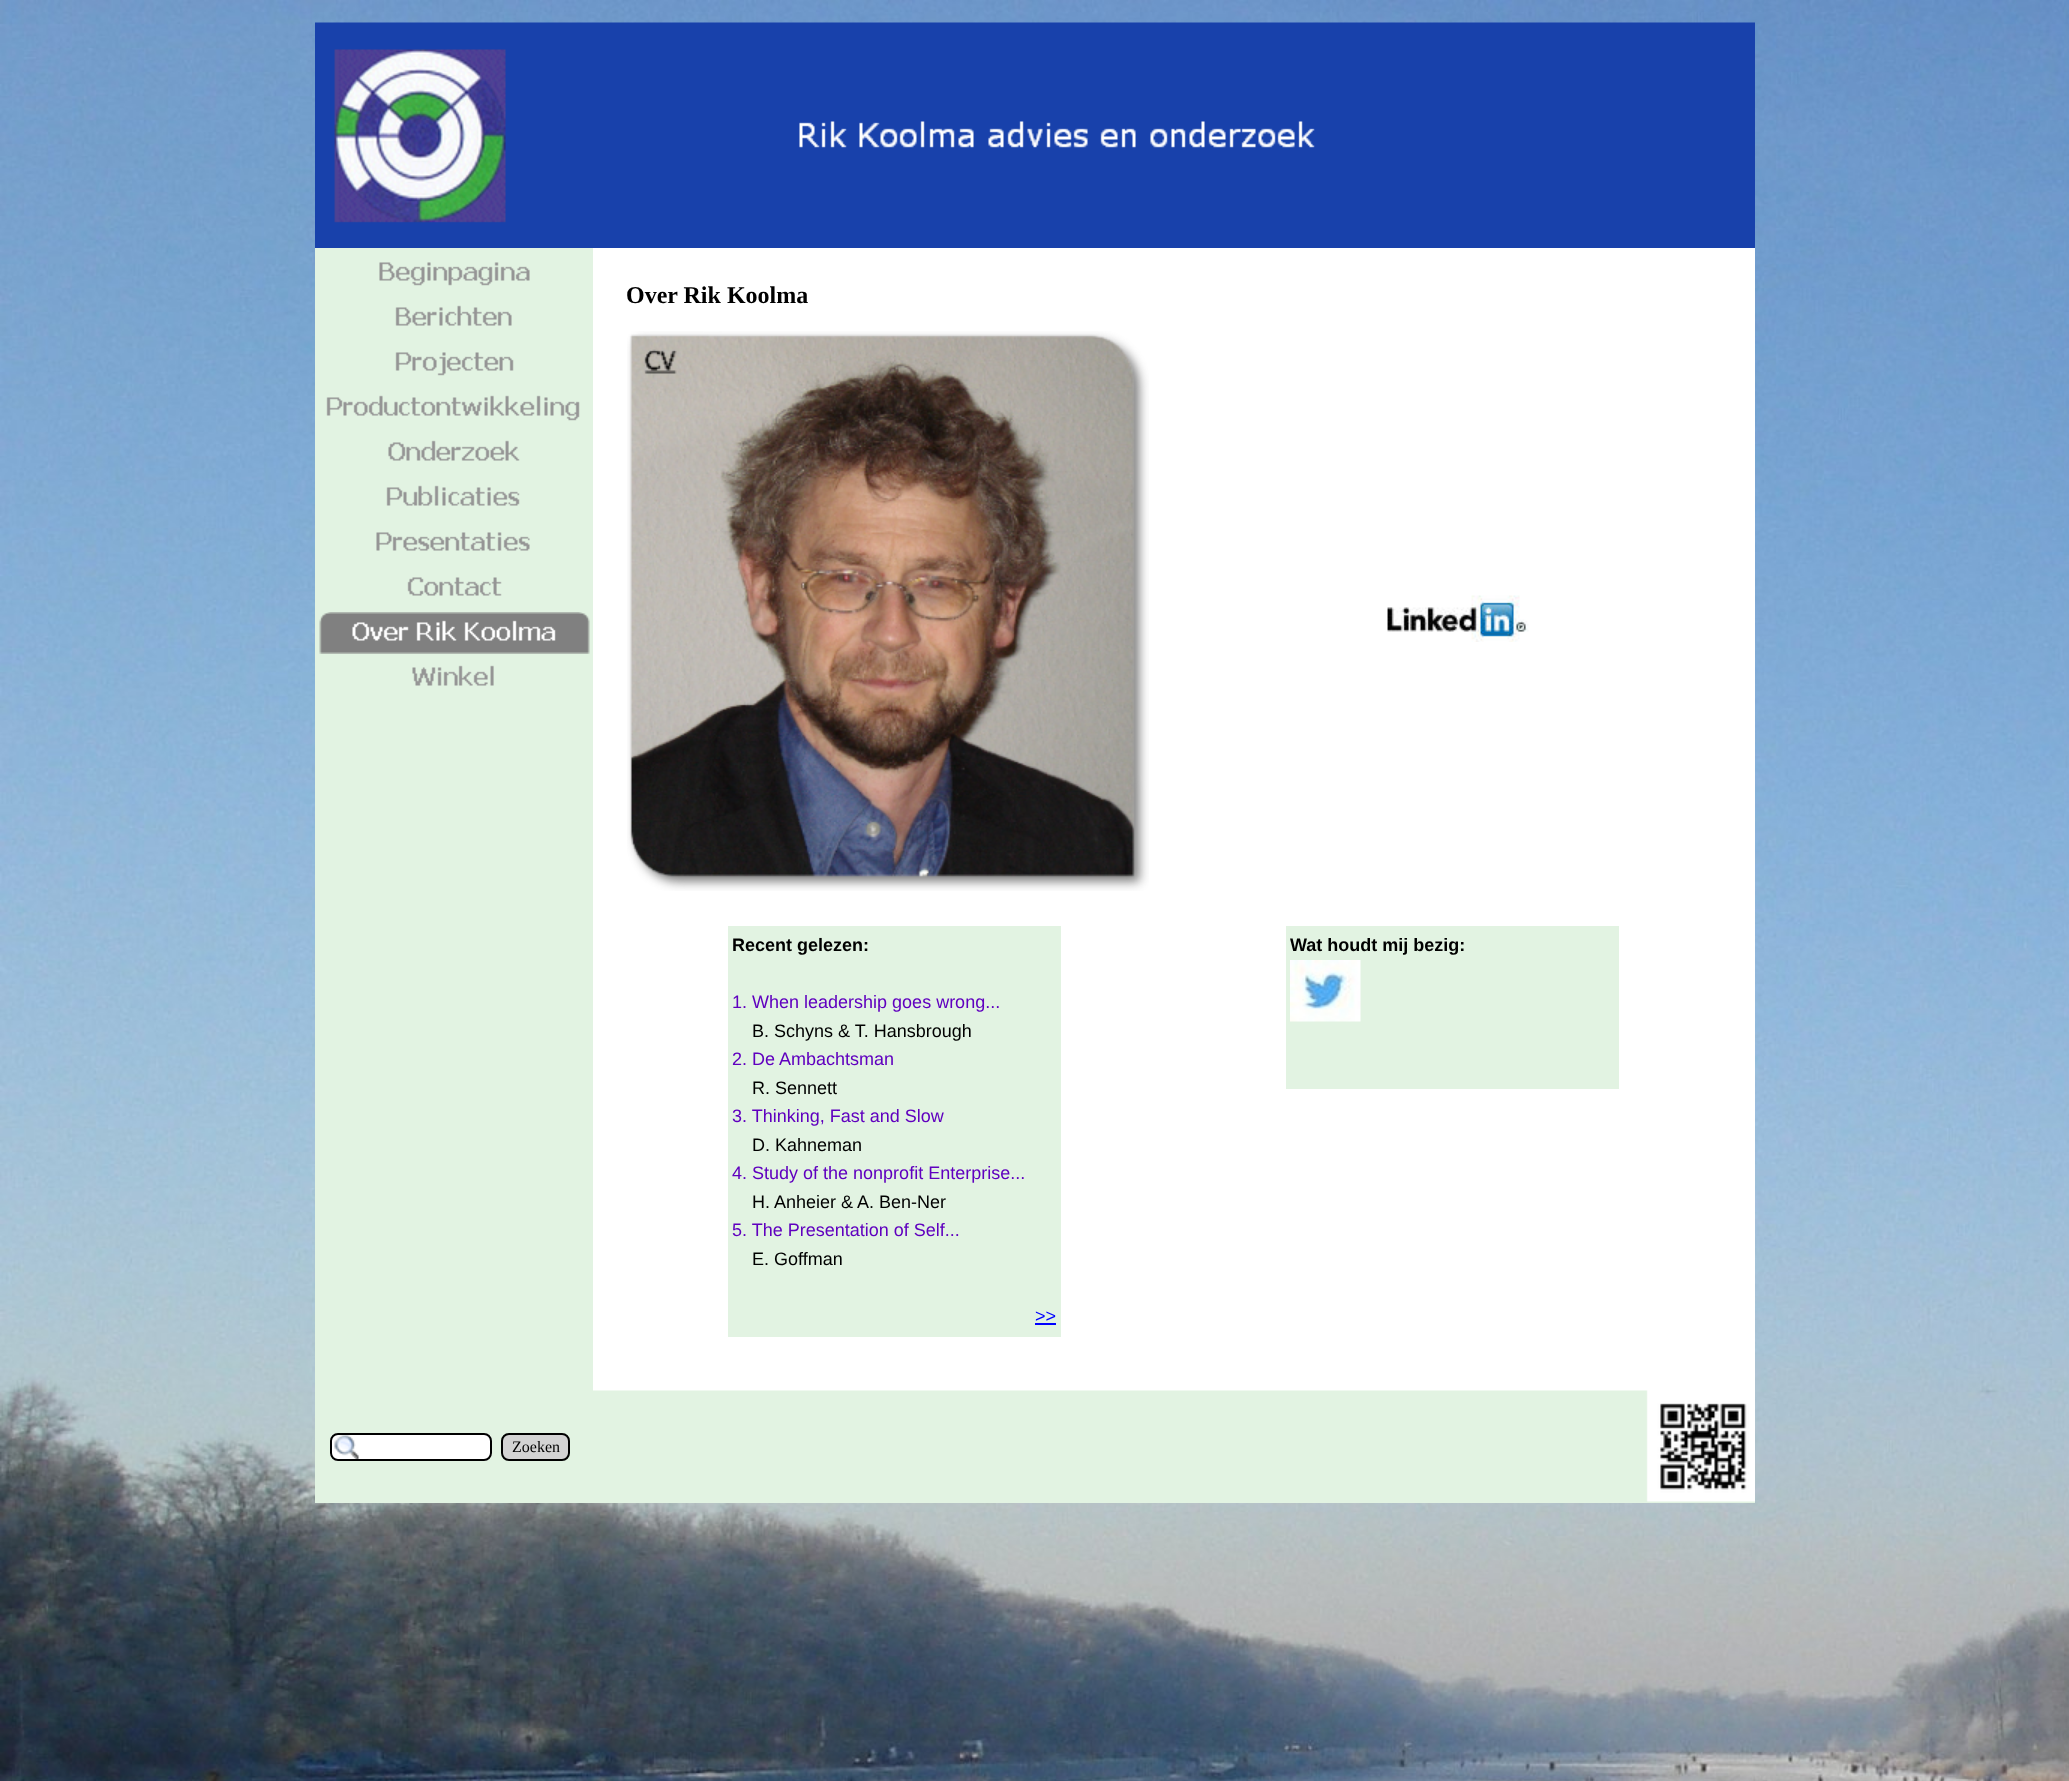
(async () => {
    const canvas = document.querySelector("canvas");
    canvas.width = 2069;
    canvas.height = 1781;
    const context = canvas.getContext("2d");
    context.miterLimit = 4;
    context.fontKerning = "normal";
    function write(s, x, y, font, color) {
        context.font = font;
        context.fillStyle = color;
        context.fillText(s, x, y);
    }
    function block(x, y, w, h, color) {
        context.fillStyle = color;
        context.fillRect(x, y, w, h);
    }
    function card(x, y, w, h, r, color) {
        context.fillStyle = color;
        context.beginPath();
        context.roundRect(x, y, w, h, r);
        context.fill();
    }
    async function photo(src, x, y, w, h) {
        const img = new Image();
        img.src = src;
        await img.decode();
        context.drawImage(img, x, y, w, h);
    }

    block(0, 0, 2069, 1781, "rgb(255, 255, 255)");
    await photo("media/1.png", 0, 0, 2069, 1781);
    block(315, 223, 1440, 25, "rgb(24, 65, 171)");
    await photo("media/2.png", 315, 22, 1440, 201);
    block(315, 248, 278, 1143, "rgb(226, 243, 226)");
    block(593, 248, 1162, 1143, "rgb(255, 255, 255)");
    await photo("media/3.png", 379, 262, 151, 24);
    await photo("media/4.png", 395, 305, 117, 21);
    await photo("media/5.png", 395, 352, 119, 24);
    await photo("media/6.png", 326, 395, 254, 26);
    await photo("media/7.png", 388, 440, 132, 21);
    await photo("media/8.png", 386, 485, 134, 21);
    await photo("media/9.png", 376, 532, 154, 19);
    await photo("media/10.png", 407, 577, 95, 19);
    await photo("media/11.png", 319, 612, 271, 42);
    await photo("media/12.png", 412, 665, 82, 21);
    write("Over Rik Koolma", 626, 303, "bold 24px Liberation Serif", "rgb(0, 0, 0)");
    await photo("media/13.png", 627, 331, 522, 560);
    await photo("media/14.png", 1387, 595, 142, 47);
    block(728, 926, 333, 411, "rgb(226, 243, 226)");
    write("Recent gelezen:", 732, 951, "bold 18px Liberation Sans", "rgb(0, 0, 0)");
    write("1. When leadership goes wrong...", 732, 1008, "18px Liberation Sans", "rgb(96, 0, 191)");
    write("B. Schyns & T. Hansbrough", 752, 1037, "18px Liberation Sans", "rgb(0, 0, 0)");
    write("2. De Ambachtsman", 732, 1065, "18px Liberation Sans", "rgb(96, 0, 191)");
    write("R. Sennett", 752, 1094, "18px Liberation Sans", "rgb(0, 0, 0)");
    write("3. Thinking, Fast and Slow", 732, 1122, "18px Liberation Sans", "rgb(96, 0, 191)");
    write("D. Kahneman", 752, 1151, "18px Liberation Sans", "rgb(0, 0, 0)");
    write("4. Study of the nonprofit Enterprise...", 732, 1179, "18px Liberation Sans", "rgb(96, 0, 191)");
    write("H. Anheier & A. Ben-Ner", 752, 1208, "18px Liberation Sans", "rgb(0, 0, 0)");
    write("5. The Presentation of Self...", 732, 1236, "18px Liberation Sans", "rgb(96, 0, 191)");
    write("E. Goffman", 752, 1265, "18px Liberation Sans", "rgb(0, 0, 0)");
    write(">>", 1035, 1322, "18px Liberation Sans", "rgb(0, 0, 255)");
    block(1035, 1323, 21, 2, "rgb(0, 0, 255)");
    block(1286, 926, 333, 163, "rgb(226, 243, 226)");
    write("Wat houdt mij bezig:", 1290, 951, "bold 18px Liberation Sans", "rgb(0, 0, 0)");
    await photo("media/15.png", 1290, 960, 71, 62);
    block(315, 1391, 1440, 112, "rgb(226, 243, 226)");
    await photo("media/16.png", 593, 1390, 1162, 112);
    card(330, 1433, 162, 28, 8, "rgb(255, 255, 255)");
    await photo("media/17.png", 334, 1435, 25, 24);
    context.beginPath();
    context.roundRect(331, 1434, 160, 26, 7);
    context.strokeStyle = "rgb(0, 0, 0)";
    context.lineWidth = 2;
    context.stroke();
    context.fillStyle = "rgb(211, 211, 211)";
    context.beginPath();
    context.roundRect(502, 1434, 67, 26, 7);
    context.fill();
    context.stroke();
    write("Zoeken", 512, 1452, "16px Liberation Serif", "rgb(0, 0, 0)");
})();
